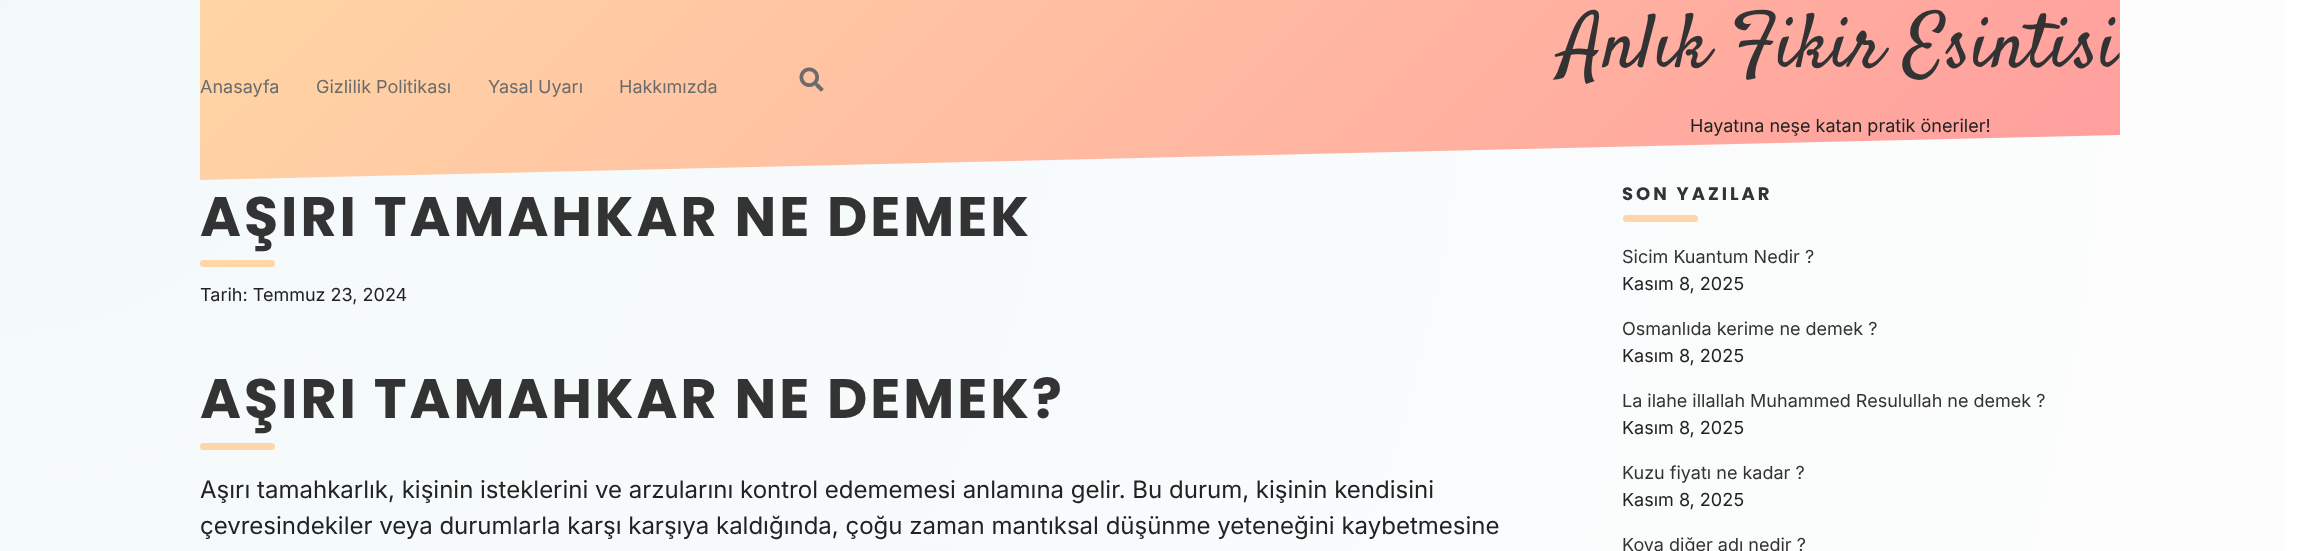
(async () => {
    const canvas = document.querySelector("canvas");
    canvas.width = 2318;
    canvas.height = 551;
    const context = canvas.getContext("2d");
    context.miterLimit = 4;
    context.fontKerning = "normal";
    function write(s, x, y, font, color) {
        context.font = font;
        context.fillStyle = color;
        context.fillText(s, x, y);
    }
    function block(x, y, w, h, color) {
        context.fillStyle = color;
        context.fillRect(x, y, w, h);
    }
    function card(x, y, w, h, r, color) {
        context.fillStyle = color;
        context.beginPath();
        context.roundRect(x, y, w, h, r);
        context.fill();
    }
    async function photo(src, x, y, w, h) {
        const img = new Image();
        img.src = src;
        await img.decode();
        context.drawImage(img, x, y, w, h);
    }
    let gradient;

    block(0, 0, 2318, 551, "rgb(255, 255, 255)");
    gradient = context.createRadialGradient(0, 0, 0, 0, 0, 2384);
    gradient.addColorStop(0, "rgb(243, 249, 251)");
    gradient.addColorStop(1, "rgb(253, 253, 253)");
    context.fillStyle = gradient;
    context.fillRect(0, 0, 2285, 551);
    gradient = context.createLinearGradient(634, -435, 1685, 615);
    gradient.addColorStop(0, "rgb(255, 214, 165)");
    gradient.addColorStop(1, "rgb(255, 158, 158)");
    context.fillStyle = gradient;
    context.beginPath();
    context.moveTo(200, 0);
    context.lineTo(200, 180);
    context.lineTo(2120, 135);
    context.lineTo(2120, 0);
    context.closePath();
    context.fill();
    write("Anasayfa", 200, 93, "18px Inter", "rgb(107, 107, 107)");
    write("Gizlilik Politikası", 316, 93, "18px Inter", "rgb(107, 107, 107)");
    write("Yasal Uyarı", 488, 93, "18px Inter", "rgb(107, 107, 107)");
    write("Hakkımızda", 619, 93, "18px Inter", "rgb(107, 107, 107)");
    await photo("media/1.png", 799, 67, 25, 25);
    context.save();
    context.beginPath();
    context.moveTo(199.5, 0);
    context.lineTo(2119.5, 0);
    context.lineTo(2119.5, 135);
    context.lineTo(199.5, 180);
    context.closePath();
    context.clip();
    write("Anlık Fikir Esintisi", 1561, 66, "76.5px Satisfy", "rgb(51, 51, 51)");
    context.restore();
    write("Hayatına neşe katan pratik öneriler!", 1690, 132, "18px Inter", "rgb(34, 34, 34)");
    context.letterSpacing = "3px";
    write("AŞIRI TAMAHKAR NE DEMEK", 200, 236, "bold 55.5px Poppins", "rgb(51, 51, 51)");
    card(200, 260, 75, 7, 3.5, "rgb(255, 214, 165)");
    context.letterSpacing = "0px";
    write("Tarih: Temmuz 23, 2024", 200, 301, "18px Inter", "rgb(34, 34, 34)");
    context.letterSpacing = "3px";
    write("AŞIRI TAMAHKAR NE DEMEK?", 200, 418, "bold 55.5px Poppins", "rgb(51, 51, 51)");
    card(200, 443, 75, 7, 3.5, "rgb(255, 214, 165)");
    context.letterSpacing = "0px";
    write("Aşırı tamahkarlık, kişinin isteklerini ve arzularını kontrol edememesi anlamına gelir. Bu durum, kişinin kendisini", 200, 498, "24px Inter", "rgb(34, 34, 34)");
    write("çevresindekiler veya durumlarla karşı karşıya kaldığında, çoğu zaman mantıksal düşünme yeteneğini kaybetmesine", 200, 534, "24px Inter", "rgb(34, 34, 34)");
    context.letterSpacing = "3px";
    write("SON YAZILAR", 1622, 200, "bold 18px Poppins", "rgb(51, 51, 51)");
    card(1623, 215, 75, 7, 3.5, "rgb(255, 214, 165)");
    context.letterSpacing = "0px";
    write("Sicim Kuantum Nedir ?", 1622, 263, "18px Inter", "rgb(51, 51, 51)");
    write("Kasım 8, 2025", 1622, 290, "18px Inter", "rgb(34, 34, 34)");
    write("Osmanlıda kerime ne demek ?", 1622, 335, "18px Inter", "rgb(51, 51, 51)");
    write("Kasım 8, 2025", 1622, 362, "18px Inter", "rgb(34, 34, 34)");
    write("La ilahe illallah Muhammed Resulullah ne demek ?", 1622, 407, "18px Inter", "rgb(51, 51, 51)");
    write("Kasım 8, 2025", 1622, 434, "18px Inter", "rgb(34, 34, 34)");
    write("Kuzu fiyatı ne kadar ?", 1622, 479, "18px Inter", "rgb(51, 51, 51)");
    write("Kasım 8, 2025", 1622, 506, "18px Inter", "rgb(34, 34, 34)");
    write("Kova diğer adı nedir ?", 1622, 551, "18px Inter", "rgb(51, 51, 51)");
})();
